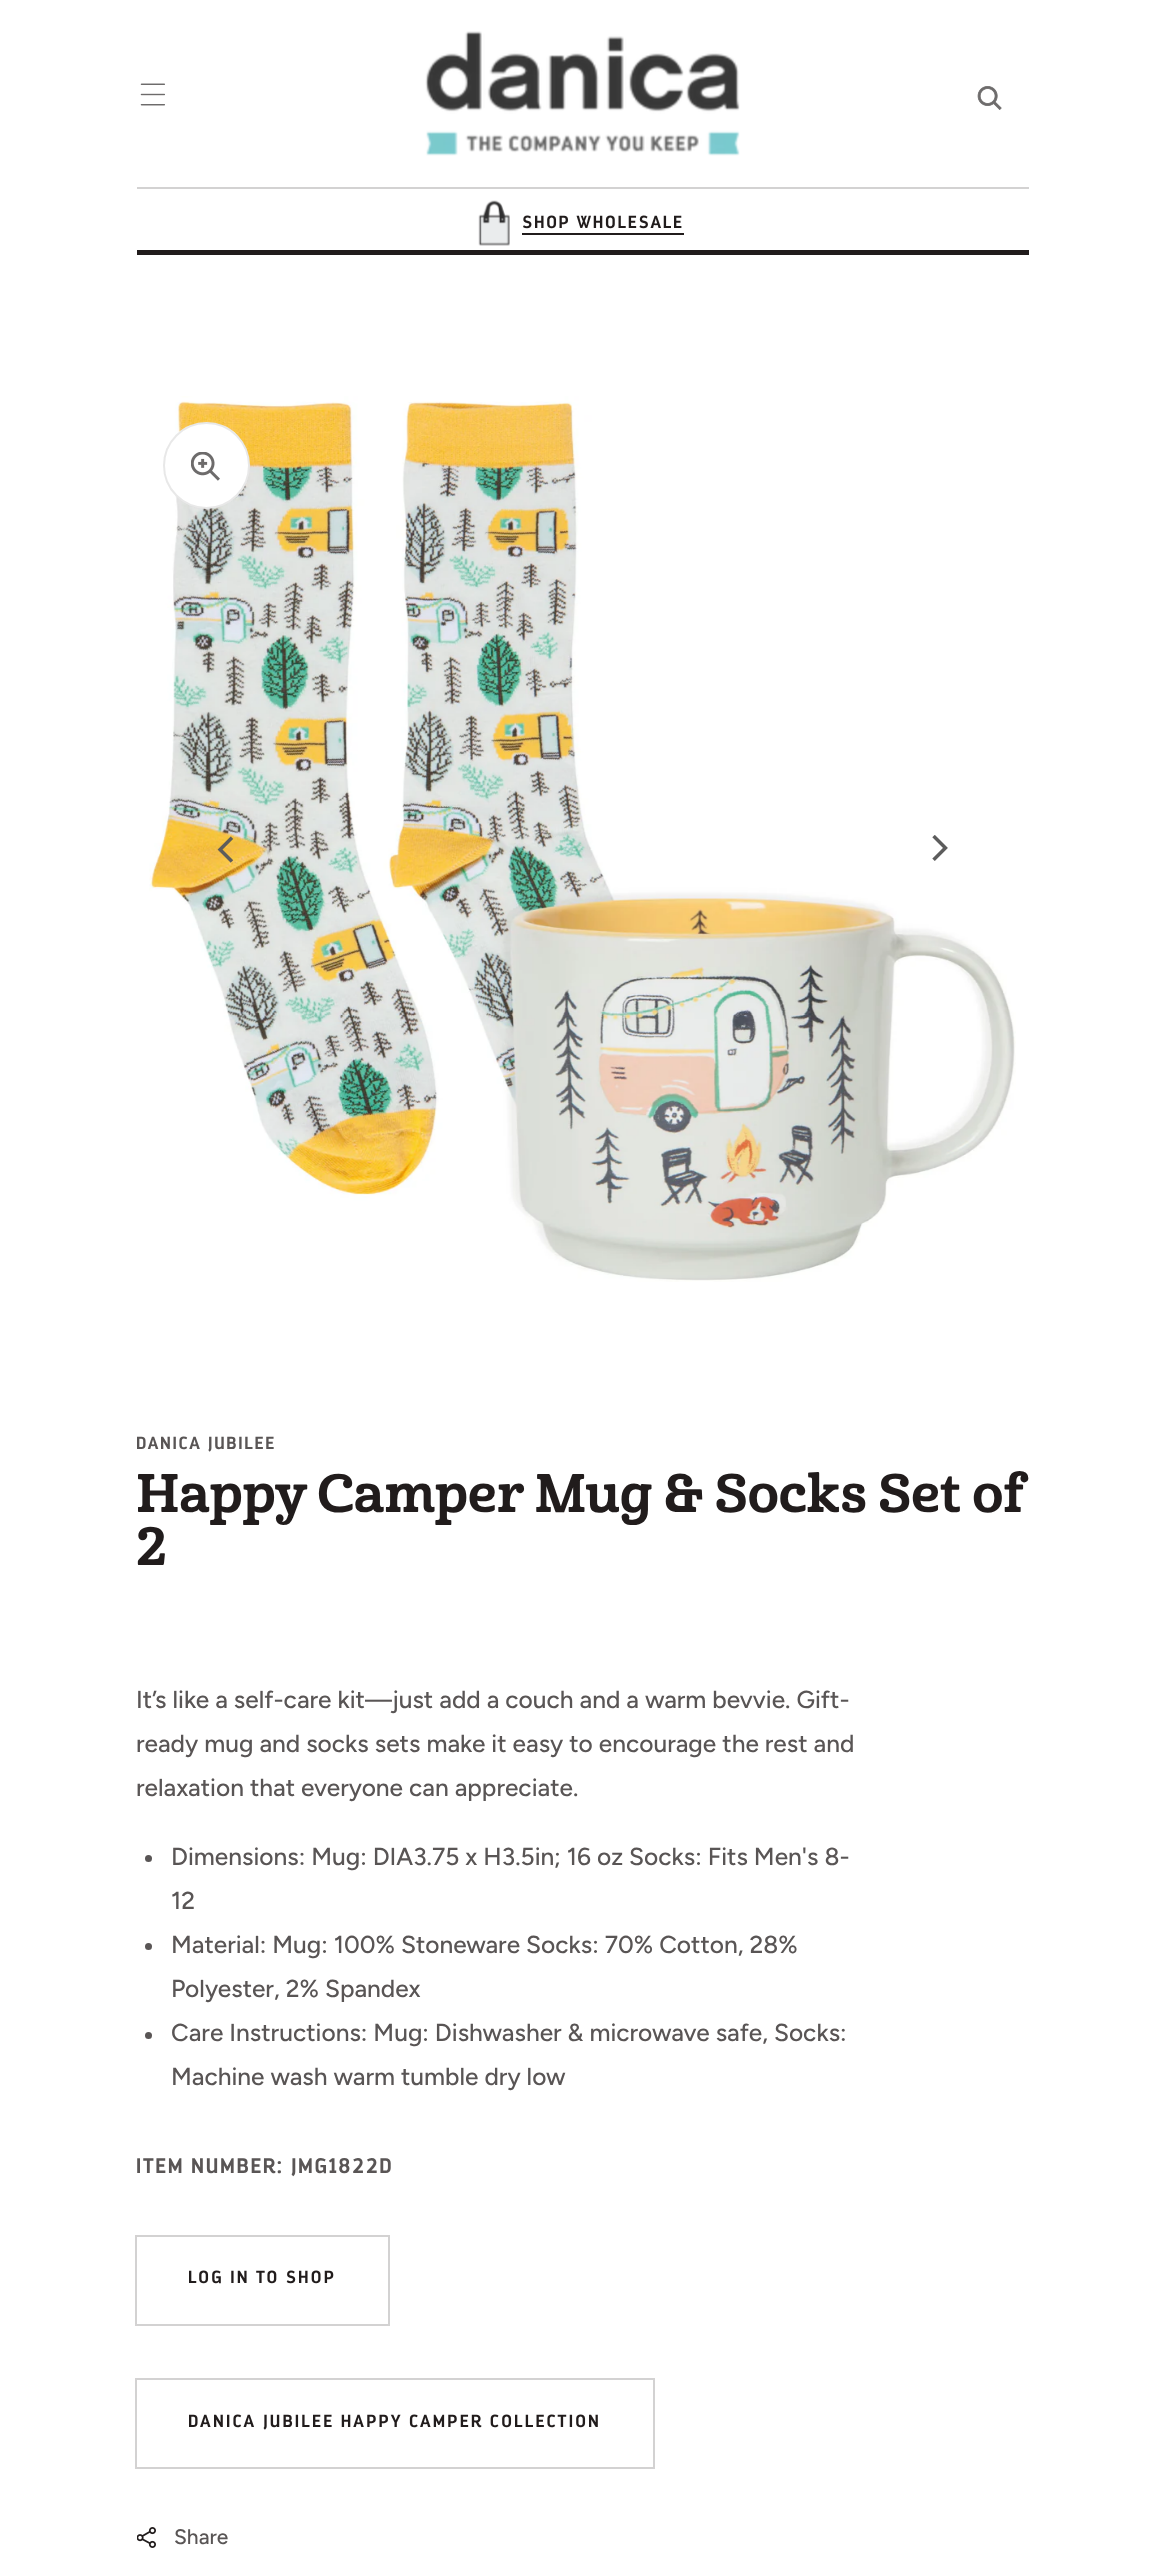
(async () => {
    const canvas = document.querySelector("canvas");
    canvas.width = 1163;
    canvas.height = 2563;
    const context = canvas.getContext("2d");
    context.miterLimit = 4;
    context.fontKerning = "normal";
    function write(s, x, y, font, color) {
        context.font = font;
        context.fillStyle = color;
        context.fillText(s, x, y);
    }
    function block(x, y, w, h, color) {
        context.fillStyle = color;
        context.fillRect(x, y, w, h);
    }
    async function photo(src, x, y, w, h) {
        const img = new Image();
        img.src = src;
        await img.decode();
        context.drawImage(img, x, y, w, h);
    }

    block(0, 0, 1163, 2563, "rgb(255, 255, 255)");
    await photo("media/1.png", 140, 83, 25, 23);
    await photo("media/2.png", 425, 31, 315, 125);
    await photo("media/3.png", 977, 86, 25, 24);
    block(137, 187, 892, 2, "rgb(211, 210, 210)");
    await photo("media/4.png", 478, 200, 32, 46);
    context.letterSpacing = "1.75px";
    write("SHOP WHOLESALE", 522, 228, "17.5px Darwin", "rgb(33, 28, 28)");
    block(522, 233, 162, 2, "rgb(33, 28, 28)");
    block(137, 250, 892, 5, "rgb(33, 28, 28)");
    await photo("media/5.png", 149, 396, 867, 886);
    context.fillStyle = "rgb(255, 255, 255)";
    context.beginPath();
    context.arc(206.5, 465.5, 43.5, 0, Math.PI * 2);
    context.fill();
    context.beginPath();
    context.arc(206.5, 465.5, 42.5, 0, Math.PI * 2);
    context.strokeStyle = "rgba(33, 28, 28, 0.1)";
    context.lineWidth = 2;
    context.stroke();
    await photo("media/6.png", 191, 452, 29, 29);
    await photo("media/7.png", 217, 836, 17, 27);
    await photo("media/8.png", 932, 835, 16, 26);
    write("DANICA JUBILEE", 136, 1449, "17.5px Darwin", "rgb(89, 85, 85)");
    context.letterSpacing = "0px";
    write("Happy Camper Mug & Socks Set of", 136, 1512, "800 52.5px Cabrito", "rgb(33, 28, 28)");
    write("2", 136, 1565, "800 52.5px Cabrito", "rgb(33, 28, 28)");
    write("It’s like a self-care kit—just add a couch and a warm bevvie. Gift-", 136, 1708, "500 24.5px Figtree", "rgb(89, 85, 85)");
    write("ready mug and socks sets make it easy to encourage the rest and", 136, 1752, "500 24.5px Figtree", "rgb(89, 85, 85)");
    write("relaxation that everyone can appreciate.", 136, 1796, "500 24.5px Figtree", "rgb(89, 85, 85)");
    context.beginPath();
    context.arc(148.5, 1858.5, 3.5, 0, Math.PI * 2);
    context.fill();
    write("Dimensions: Mug: DIA3.75 x H3.5in; 16 oz Socks: Fits Men's 8-", 171, 1865, "500 24.5px Figtree", "rgb(89, 85, 85)");
    write("12", 171, 1909, "500 24.5px Figtree", "rgb(89, 85, 85)");
    context.beginPath();
    context.arc(148.5, 1946.5, 3.5, 0, Math.PI * 2);
    context.fill();
    write("Material: Mug: 100% Stoneware Socks: 70% Cotton, 28%", 171, 1953, "500 24.5px Figtree", "rgb(89, 85, 85)");
    write("Polyester, 2% Spandex", 171, 1997, "500 24.5px Figtree", "rgb(89, 85, 85)");
    context.beginPath();
    context.arc(148.5, 2035.5, 3.5, 0, Math.PI * 2);
    context.fill();
    write("Care Instructions: Mug: Dishwasher & microwave safe, Socks:", 171, 2041, "500 24.5px Figtree", "rgb(89, 85, 85)");
    write("Machine wash warm tumble dry low", 171, 2085, "500 24.5px Figtree", "rgb(89, 85, 85)");
    context.letterSpacing = "1.75px";
    write("ITEM NUMBER: JMG1822D", 136, 2173, "21px Darwin", "rgb(89, 85, 85)");
    context.strokeStyle = "rgb(211, 210, 210)";
    context.strokeRect(136, 2236, 253, 89);
    context.letterSpacing = "2.2px";
    write("LOG IN TO SHOP", 188, 2283, "17.5px Darwin", "rgb(33, 28, 28)");
    context.strokeRect(136, 2379, 518, 89);
    write("DANICA JUBILEE HAPPY CAMPER COLLECTION", 188, 2427, "17.5px Darwin", "rgb(33, 28, 28)");
    await photo("media/9.png", 137, 2527, 19, 21);
    context.letterSpacing = "0px";
    write("Share", 174, 2544, "500 21px Figtree", "rgb(89, 85, 85)");
})();
